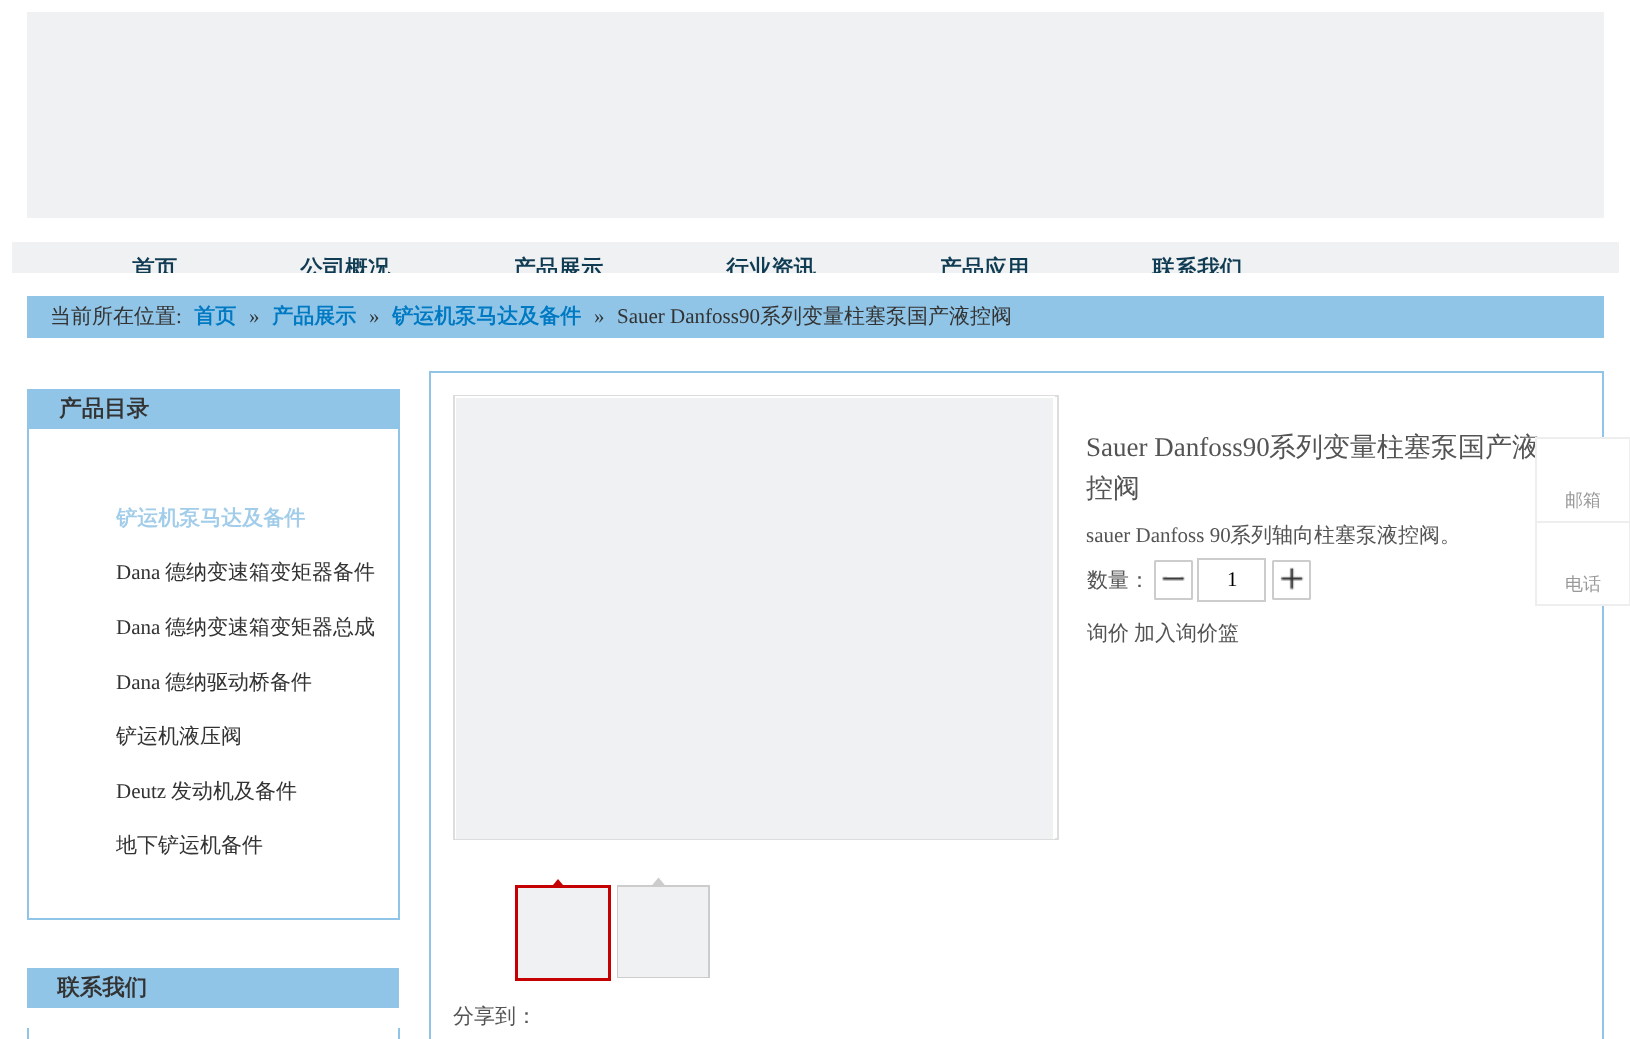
(async () => {
    const canvas = document.querySelector("canvas");
    canvas.width = 1630;
    canvas.height = 1039;
    const context = canvas.getContext("2d");
    context.miterLimit = 4;
    context.fontKerning = "normal";
    function write(s, x, y, font, color) {
        context.font = font;
        context.fillStyle = color;
        context.fillText(s, x, y);
    }
    function block(x, y, w, h, color) {
        context.fillStyle = color;
        context.fillRect(x, y, w, h);
    }
    async function photo(src, x, y, w, h) {
        const img = new Image();
        img.src = src;
        await img.decode();
        context.drawImage(img, x, y, w, h);
    }

    block(0, 0, 1630, 1039, "rgb(255, 255, 255)");
    block(27, 12, 1577, 206, "rgb(240, 241, 242)");
    block(12, 242, 1607, 31, "rgb(240, 241, 242)");
    context.save();
    context.beginPath();
    context.rect(12, 218, 1607, 55);
    context.clip();
    write("首页", 132, 276, "bold 22.5px WenQuanYi Zen Hei", "rgb(15, 59, 83)");
    write("公司概况", 300, 276, "bold 22.5px WenQuanYi Zen Hei", "rgb(15, 59, 83)");
    write("产品展示", 513, 276, "bold 22.5px WenQuanYi Zen Hei", "rgb(15, 59, 83)");
    write("行业资讯", 726, 276, "bold 22.5px WenQuanYi Zen Hei", "rgb(15, 59, 83)");
    write("产品应用", 939, 276, "bold 22.5px WenQuanYi Zen Hei", "rgb(15, 59, 83)");
    write("联系我们", 1152, 276, "bold 22.5px WenQuanYi Zen Hei", "rgb(15, 59, 83)");
    context.restore();
    block(27, 296, 1577, 42, "rgb(144, 197, 231)");
    write("当前所在位置", 50, 323, "500 21px WenQuanYi Zen Hei", "rgb(51, 51, 51)");
    write(":", 176, 323, "21px Liberation Serif", "rgb(51, 51, 51)");
    write("首页", 194, 323, "bold 21px WenQuanYi Zen Hei", "rgb(0, 121, 195)");
    write("»", 249, 323, "21px Liberation Serif", "rgb(51, 51, 51)");
    write("产品展示", 272, 323, "bold 21px WenQuanYi Zen Hei", "rgb(0, 121, 195)");
    write("»", 369, 323, "21px Liberation Serif", "rgb(51, 51, 51)");
    write("铲运机泵马达及备件", 392, 323, "bold 21px WenQuanYi Zen Hei", "rgb(0, 121, 195)");
    write("»", 594, 323, "21px Liberation Serif", "rgb(51, 51, 51)");
    write("Sauer Danfoss90", 617, 323, "21px Liberation Serif", "rgb(51, 51, 51)");
    write("系列变量柱塞泵国产液控阀", 760, 323, "500 21px WenQuanYi Zen Hei", "rgb(51, 51, 51)");
    block(398, 389, 2, 531, "rgb(144, 197, 231)");
    block(27, 918, 372, 2, "rgb(144, 197, 231)");
    block(27, 389, 2, 531, "rgb(144, 197, 231)");
    block(29, 389, 369, 40, "rgb(144, 197, 231)");
    write("产品目录", 59, 416, "bold 22.5px WenQuanYi Zen Hei", "rgb(51, 51, 51)");
    write("铲运机泵马达及备件", 116, 525, "bold 21px WenQuanYi Zen Hei", "rgb(162, 205, 234)");
    write("Dana", 116, 579, "21px Liberation Serif", "rgb(51, 51, 51)");
    write("德纳变速箱变矩器备件", 165, 579, "500 21px WenQuanYi Zen Hei", "rgb(51, 51, 51)");
    write("Dana", 116, 634, "21px Liberation Serif", "rgb(51, 51, 51)");
    write("德纳变速箱变矩器总成", 165, 634, "500 21px WenQuanYi Zen Hei", "rgb(51, 51, 51)");
    write("Dana", 116, 689, "21px Liberation Serif", "rgb(51, 51, 51)");
    write("德纳驱动桥备件", 165, 689, "500 21px WenQuanYi Zen Hei", "rgb(51, 51, 51)");
    write("铲运机液压阀", 116, 743, "500 21px WenQuanYi Zen Hei", "rgb(51, 51, 51)");
    write("Deutz", 116, 798, "21px Liberation Serif", "rgb(51, 51, 51)");
    write("发动机及备件", 171, 798, "500 21px WenQuanYi Zen Hei", "rgb(51, 51, 51)");
    write("地下铲运机备件", 116, 852, "500 21px WenQuanYi Zen Hei", "rgb(51, 51, 51)");
    block(27, 968, 372, 40, "rgb(144, 197, 231)");
    write("联系我们", 57, 995, "bold 22.5px WenQuanYi Zen Hei", "rgb(51, 51, 51)");
    block(398, 1028, 2, 11, "rgb(144, 197, 231)");
    block(27, 1028, 2, 11, "rgb(144, 197, 231)");
    context.strokeStyle = "rgb(144, 197, 231)";
    context.lineWidth = 2;
    context.strokeRect(430, 372, 1173, 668);
    write("Sauer Danfoss90", 1086, 456, "27px Liberation Serif", "rgb(84, 84, 84)");
    write("系列变量柱塞泵国产液", 1269, 456, "500 27px WenQuanYi Zen Hei", "rgb(84, 84, 84)");
    write("控阀", 1086, 497, "500 27px WenQuanYi Zen Hei", "rgb(84, 84, 84)");
    write("sauer Danfoss 90", 1086, 542, "21px Liberation Serif", "rgb(84, 84, 84)");
    write("系列轴向柱塞泵液控阀。", 1230, 542, "500 21px WenQuanYi Zen Hei", "rgb(84, 84, 84)");
    write("数量：", 1087, 587, "500 21px WenQuanYi Zen Hei", "rgb(84, 84, 84)");
    await photo("media/1.png", 1162, 576, 23, 5);
    context.beginPath();
    context.roundRect(1155, 561, 37, 38, 0.5);
    context.strokeStyle = "rgb(204, 204, 204)";
    context.stroke();
    context.strokeRect(1198, 559, 67, 42);
    write("1", 1227, 586, "21px Liberation Serif", "rgb(0, 0, 0)");
    await photo("media/2.png", 1280, 567, 24, 23);
    context.beginPath();
    context.roundRect(1273, 561, 37, 38, 0.5);
    context.stroke();
    write("询价", 1087, 640, "500 21px WenQuanYi Zen Hei", "rgb(84, 84, 84)");
    write("加入询价篮", 1134, 640, "500 21px WenQuanYi Zen Hei", "rgb(84, 84, 84)");
    context.strokeStyle = "rgb(221, 221, 221)";
    context.strokeRect(454, 396, 604, 443);
    block(455, 396, 600, 443, "rgb(255, 255, 255)");
    block(456, 398, 597, 441, "rgb(240, 241, 242)");
    context.strokeStyle = "rgb(196, 0, 0)";
    context.lineWidth = 3;
    context.strokeRect(516.5, 886.5, 93, 93);
    context.fillStyle = "rgb(196, 0, 0)";
    context.beginPath();
    context.moveTo(565.5, 888);
    context.lineTo(550.5, 888);
    context.lineTo(558, 879);
    context.closePath();
    context.fill();
    block(518, 888, 90, 90, "rgb(240, 241, 242)");
    context.strokeStyle = "rgb(204, 204, 204)";
    context.lineWidth = 2;
    context.strokeRect(618, 886, 91, 91);
    context.fillStyle = "rgb(204, 204, 204)";
    context.beginPath();
    context.moveTo(666, 886.5);
    context.lineTo(651, 886.5);
    context.lineTo(658.5, 877.5);
    context.closePath();
    context.fill();
    block(618, 887, 90, 90, "rgb(240, 241, 242)");
    write("分享到：", 453, 1023, "500 21px WenQuanYi Zen Hei", "rgb(84, 84, 84)");
    block(1537, 439, 67, 82, "rgb(255, 255, 255)");
    block(1535, 437, 95, 2, "rgb(238, 238, 238)");
    block(1629, 437, 1, 84, "rgb(238, 238, 238)");
    block(1535, 437, 2, 84, "rgb(238, 238, 238)");
    write("邮箱", 1565, 506, "500 18px WenQuanYi Zen Hei", "rgb(153, 153, 153)");
    block(1602, 523, 2, 81, "rgb(255, 255, 255)");
    context.strokeStyle = "rgb(238, 238, 238)";
    context.strokeRect(1536, 522, 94, 83);
    write("电话", 1565, 590, "500 18px WenQuanYi Zen Hei", "rgb(153, 153, 153)");
})();
